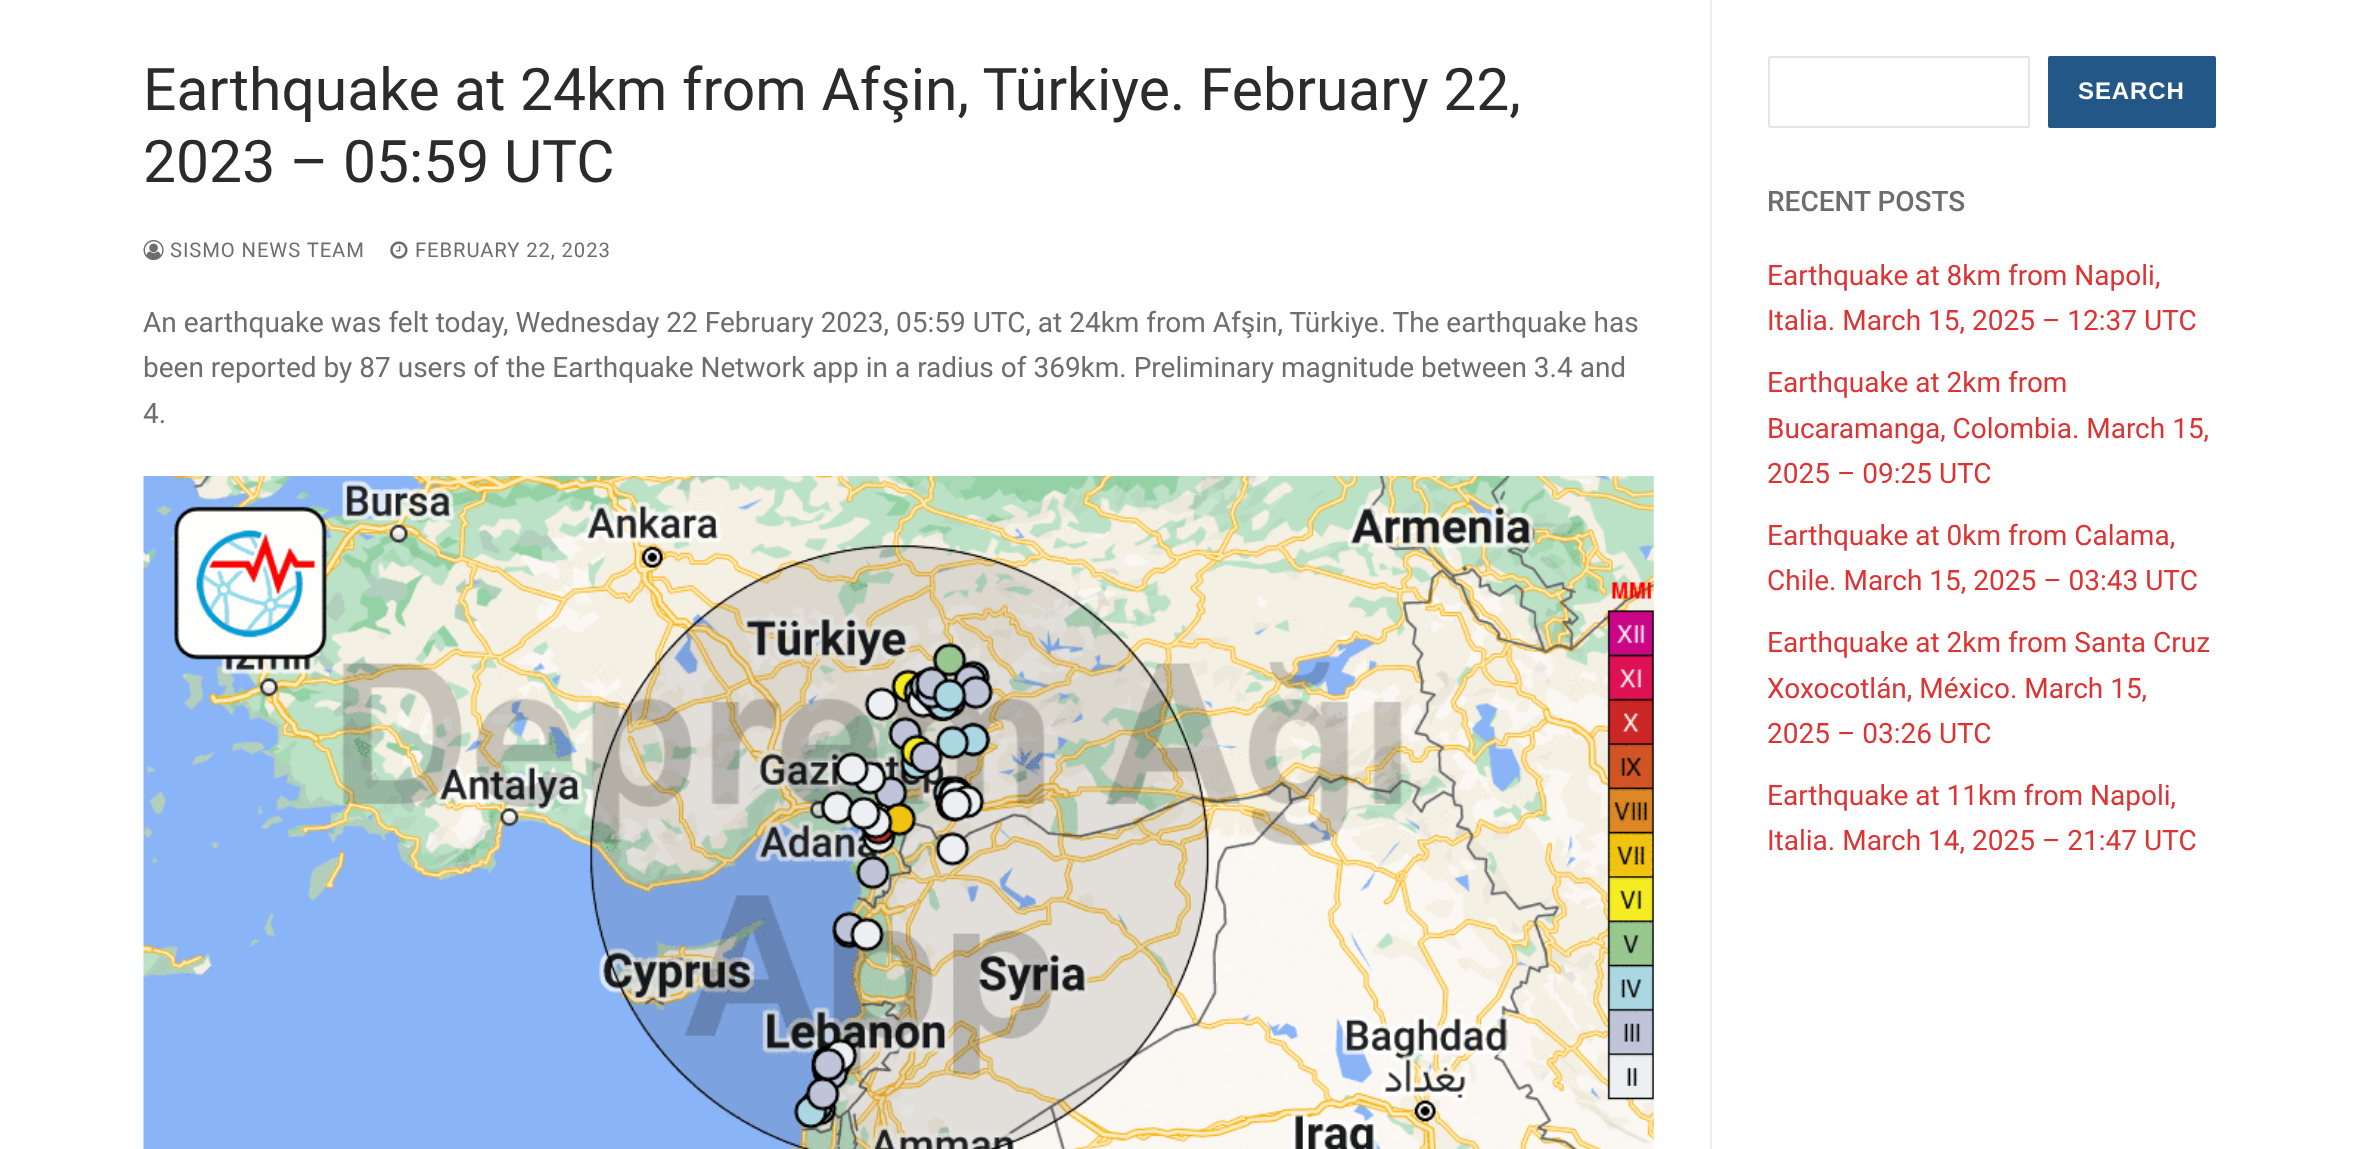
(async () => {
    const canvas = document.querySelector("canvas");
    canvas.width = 2356;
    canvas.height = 1149;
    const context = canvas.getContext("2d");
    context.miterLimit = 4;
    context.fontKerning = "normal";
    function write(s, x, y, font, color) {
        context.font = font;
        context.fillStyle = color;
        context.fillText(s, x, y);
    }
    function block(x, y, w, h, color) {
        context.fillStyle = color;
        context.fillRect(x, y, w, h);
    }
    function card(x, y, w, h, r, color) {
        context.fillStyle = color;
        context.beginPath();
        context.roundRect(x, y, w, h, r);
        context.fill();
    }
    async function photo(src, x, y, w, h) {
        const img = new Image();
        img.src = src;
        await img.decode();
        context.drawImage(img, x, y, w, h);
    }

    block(0, 0, 2356, 1149, "rgb(255, 255, 255)");
    block(1710, 0, 2, 1149, "rgb(234, 236, 238)");
    write("Earthquake at 24km from Afşin, Türkiye. February 22,", 143, 110, "58.8px Roboto", "rgb(43, 43, 43)");
    write("2023 – 05:59 UTC", 143, 182, "58.8px Roboto", "rgb(43, 43, 43)");
    await photo("media/1.png", 143, 240, 21, 21);
    context.letterSpacing = "0.9px";
    write("SISMO NEWS TEAM", 170, 257, "20.25px Roboto", "rgb(109, 109, 109)");
    await photo("media/2.png", 390, 241, 18, 18);
    write("FEBRUARY 22, 2023", 415, 257, "20.25px Roboto", "rgb(109, 109, 109)");
    context.letterSpacing = "0px";
    write("An earthquake was felt today, Wednesday 22 February 2023, 05:59 UTC, at 24km from Afşin, Türkiye. The earthquake has", 143, 332, "28px Roboto", "rgb(109, 109, 109)");
    write("been reported by 87 users of the Earthquake Network app in a radius of 369km. Preliminary magnitude between 3.4 and", 143, 377, "28px Roboto", "rgb(109, 109, 109)");
    write("4.", 143, 423, "28px Roboto", "rgb(109, 109, 109)");
    await photo("media/3.png", 143, 476, 1511, 673);
    context.beginPath();
    context.roundRect(1769, 57, 260, 70, 1);
    context.strokeStyle = "rgb(229, 229, 229)";
    context.lineWidth = 2;
    context.stroke();
    card(2048, 56, 168, 72, 2, "rgb(35, 87, 135)");
    context.letterSpacing = "0.9px";
    write("SEARCH", 2078, 99, "bold 24px Liberation Sans", "rgb(255, 255, 255)");
    context.letterSpacing = "0px";
    write("RECENT POSTS", 1767, 211, "500 28px Roboto", "rgb(109, 109, 109)");
    write("Earthquake at 8km from Napoli,", 1767, 285, "28px Roboto", "rgb(221, 51, 51)");
    write("Italia. March 15, 2025 – 12:37 UTC", 1767, 330, "28px Roboto", "rgb(221, 51, 51)");
    write("Earthquake at 2km from", 1767, 392, "28px Roboto", "rgb(221, 51, 51)");
    write("Bucaramanga, Colombia. March 15,", 1767, 438, "28px Roboto", "rgb(221, 51, 51)");
    write("2025 – 09:25 UTC", 1767, 483, "28px Roboto", "rgb(221, 51, 51)");
    write("Earthquake at 0km from Calama,", 1767, 545, "28px Roboto", "rgb(221, 51, 51)");
    write("Chile. March 15, 2025 – 03:43 UTC", 1767, 590, "28px Roboto", "rgb(221, 51, 51)");
    write("Earthquake at 2km from Santa Cruz", 1767, 652, "28px Roboto", "rgb(221, 51, 51)");
    write("Xoxocotlán, México. March 15,", 1767, 698, "28px Roboto", "rgb(221, 51, 51)");
    write("2025 – 03:26 UTC", 1767, 743, "28px Roboto", "rgb(221, 51, 51)");
    write("Earthquake at 11km from Napoli,", 1767, 805, "28px Roboto", "rgb(221, 51, 51)");
    write("Italia. March 14, 2025 – 21:47 UTC", 1767, 850, "28px Roboto", "rgb(221, 51, 51)");
})();
